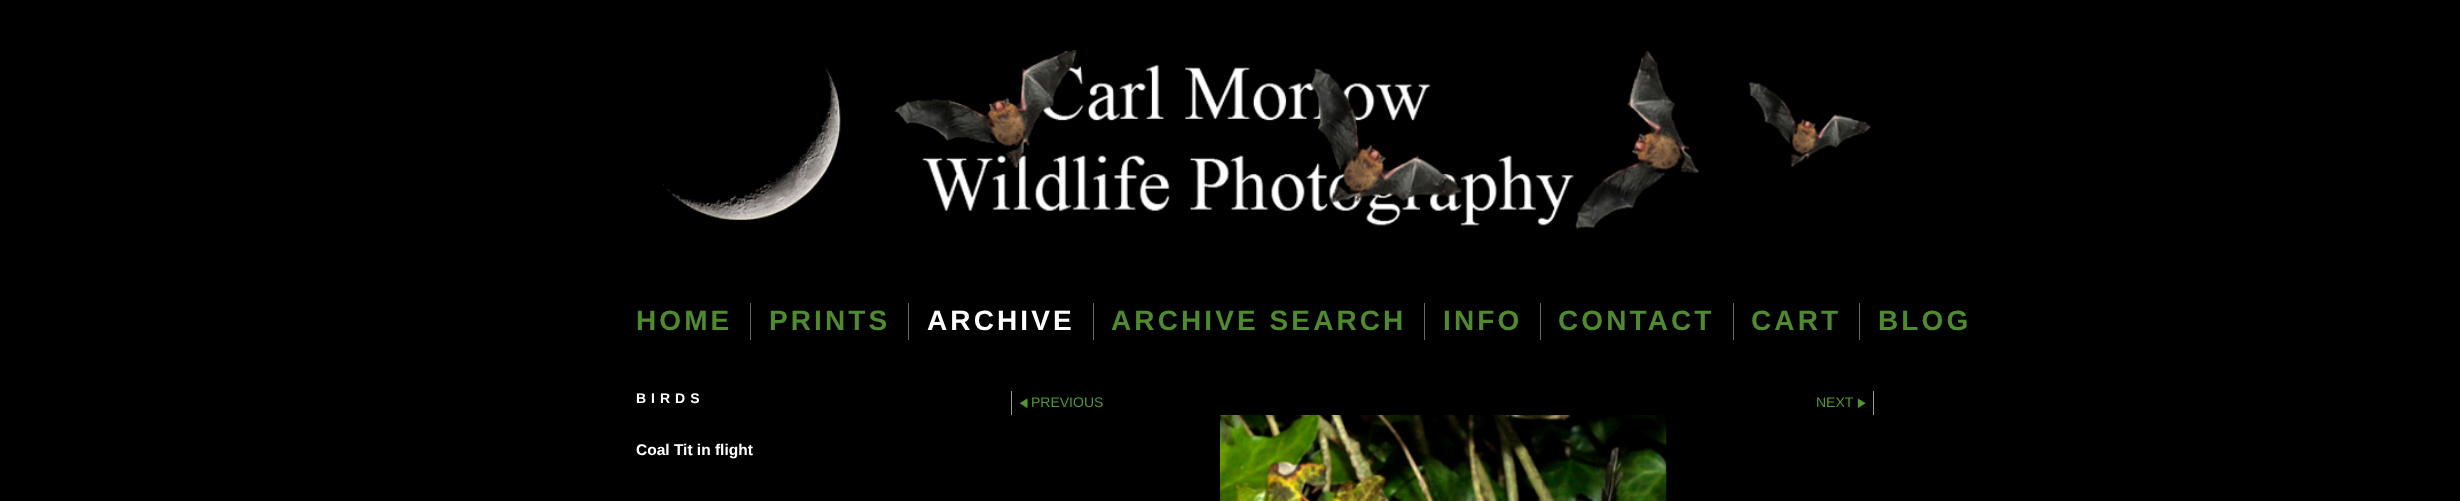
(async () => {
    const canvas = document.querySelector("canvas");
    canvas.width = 2460;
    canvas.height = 501;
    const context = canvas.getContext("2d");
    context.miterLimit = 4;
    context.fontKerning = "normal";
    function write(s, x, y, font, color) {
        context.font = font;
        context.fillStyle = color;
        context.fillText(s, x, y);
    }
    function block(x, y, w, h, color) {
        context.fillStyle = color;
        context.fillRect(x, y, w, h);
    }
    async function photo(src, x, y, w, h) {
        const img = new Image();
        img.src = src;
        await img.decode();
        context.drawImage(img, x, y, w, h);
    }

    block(0, 0, 2460, 501, "rgb(0, 0, 0)");
    await photo("media/1.png", 662, 50, 1209, 179);
    context.letterSpacing = "3.1px";
    write("HOME", 636, 330, "bold 28px Liberation Sans", "rgb(80, 138, 48)");
    block(750, 303, 1, 37, "rgb(102, 102, 102)");
    write("PRINTS", 769, 330, "bold 28px Liberation Sans", "rgb(80, 138, 48)");
    block(908, 303, 1, 37, "rgb(102, 102, 102)");
    write("ARCHIVE", 927, 330, "bold 28px Liberation Sans", "rgb(255, 255, 255)");
    block(1093, 303, 1, 37, "rgb(102, 102, 102)");
    write("ARCHIVE SEARCH", 1111, 330, "bold 28px Liberation Sans", "rgb(80, 138, 48)");
    block(1424, 303, 1, 37, "rgb(102, 102, 102)");
    write("INFO", 1443, 330, "bold 28px Liberation Sans", "rgb(80, 138, 48)");
    block(1540, 303, 1, 37, "rgb(102, 102, 102)");
    write("CONTACT", 1558, 330, "bold 28px Liberation Sans", "rgb(80, 138, 48)");
    block(1733, 303, 1, 37, "rgb(102, 102, 102)");
    write("CART", 1751, 330, "bold 28px Liberation Sans", "rgb(80, 138, 48)");
    block(1859, 303, 1, 37, "rgb(102, 102, 102)");
    write("BLOG", 1878, 330, "bold 28px Liberation Sans", "rgb(80, 138, 48)");
    context.letterSpacing = "5px";
    write("BIRDS", 636, 403, "bold 14px Liberation Sans", "rgb(255, 255, 255)");
    context.letterSpacing = "0px";
    write("Coal Tit in flight", 636, 455, "bold 15.5px Liberation Sans", "rgb(255, 255, 255)");
    block(1011, 391, 1, 24, "rgb(153, 153, 153)");
    await photo("media/2.png", 1019, 398, 9, 10);
    write("PREVIOUS", 1031, 407, "14px Liberation Sans", "rgb(81, 153, 50)");
    block(1873, 391, 1, 24, "rgb(153, 153, 153)");
    write("NEXT", 1816, 407, "14px Liberation Sans", "rgb(81, 153, 50)");
    await photo("media/3.png", 1857, 398, 9, 10);
    await photo("media/4.png", 1220, 415, 447, 86);
})();
